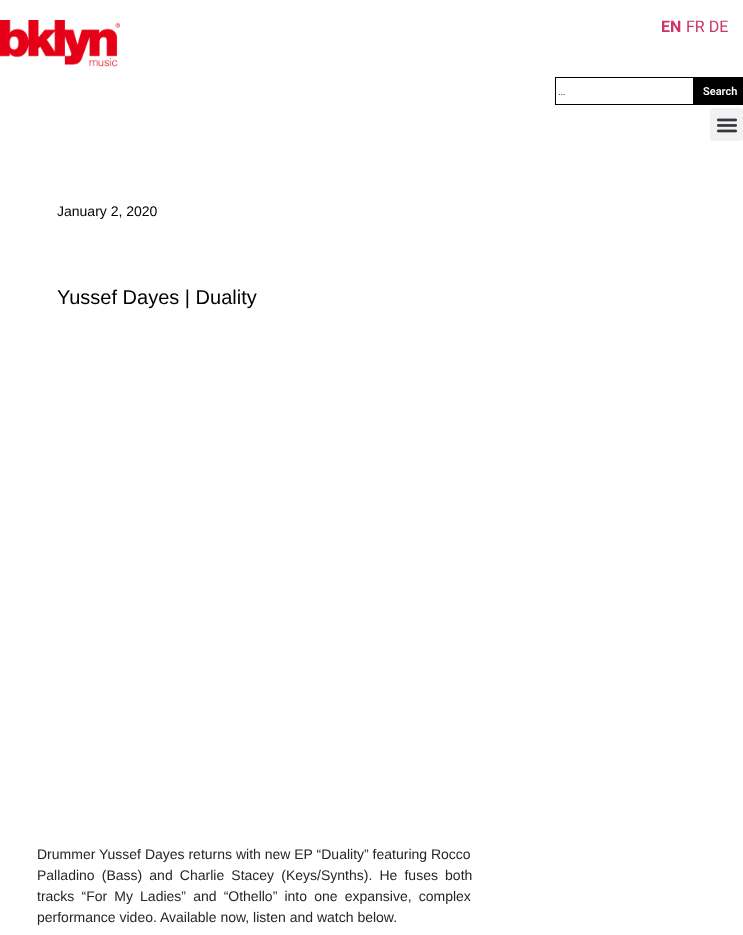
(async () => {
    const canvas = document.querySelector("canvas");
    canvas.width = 743;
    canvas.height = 935;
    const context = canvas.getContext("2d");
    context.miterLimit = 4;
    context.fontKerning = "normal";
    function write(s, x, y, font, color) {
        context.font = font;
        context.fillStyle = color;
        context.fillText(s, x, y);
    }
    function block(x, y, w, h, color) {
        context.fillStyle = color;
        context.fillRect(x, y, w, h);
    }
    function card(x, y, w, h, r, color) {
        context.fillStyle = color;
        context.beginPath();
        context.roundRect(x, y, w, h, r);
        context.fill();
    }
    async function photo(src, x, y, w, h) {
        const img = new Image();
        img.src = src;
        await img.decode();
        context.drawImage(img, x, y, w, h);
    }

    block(0, 0, 743, 935, "rgb(255, 255, 255)");
    write("EN", 661, 32, "bold 16px Roboto", "rgb(204, 51, 102)");
    write("FR DE", 686, 32, "16px Roboto", "rgb(204, 51, 102)");
    await photo("media/1.png", 0, 20, 120, 47);
    context.strokeStyle = "rgb(0, 0, 0)";
    context.strokeRect(555.5, 77.5, 138, 27);
    write("…", 558, 95, "11px Roboto", "rgb(81, 89, 98)");
    block(694, 77, 49, 28, "rgb(0, 0, 0)");
    write("Search", 703, 95, "600 11px Roboto", "rgb(255, 255, 255)");
    card(710, 108, 33, 33, 3, "rgb(242, 242, 242)");
    await photo("media/2.png", 716, 118, 22, 15);
    write("January 2, 2020", 57, 216, "14px Liberation Sans", "rgb(0, 0, 0)");
    write("Yussef Dayes | Duality", 57, 304, "20px Liberation Sans", "rgb(0, 0, 0)");
    write("Drummer Yussef Dayes returns with new EP “Duality” featuring Rocco", 37, 859, "14px Liberation Sans", "rgb(37, 37, 37)");
    context.wordSpacing = "3.25px";
    write("Palladino (Bass) and Charlie Stacey (Keys/Synths). He fuses both", 37, 880, "14px Liberation Sans", "rgb(37, 37, 37)");
    write("tracks “For My Ladies” and “Othello” into one expansive, complex", 37, 901, "14px Liberation Sans", "rgb(37, 37, 37)");
    context.wordSpacing = "0px";
    write("performance video. Available now, listen and watch below.", 37, 922, "14px Liberation Sans", "rgb(37, 37, 37)");
})();
